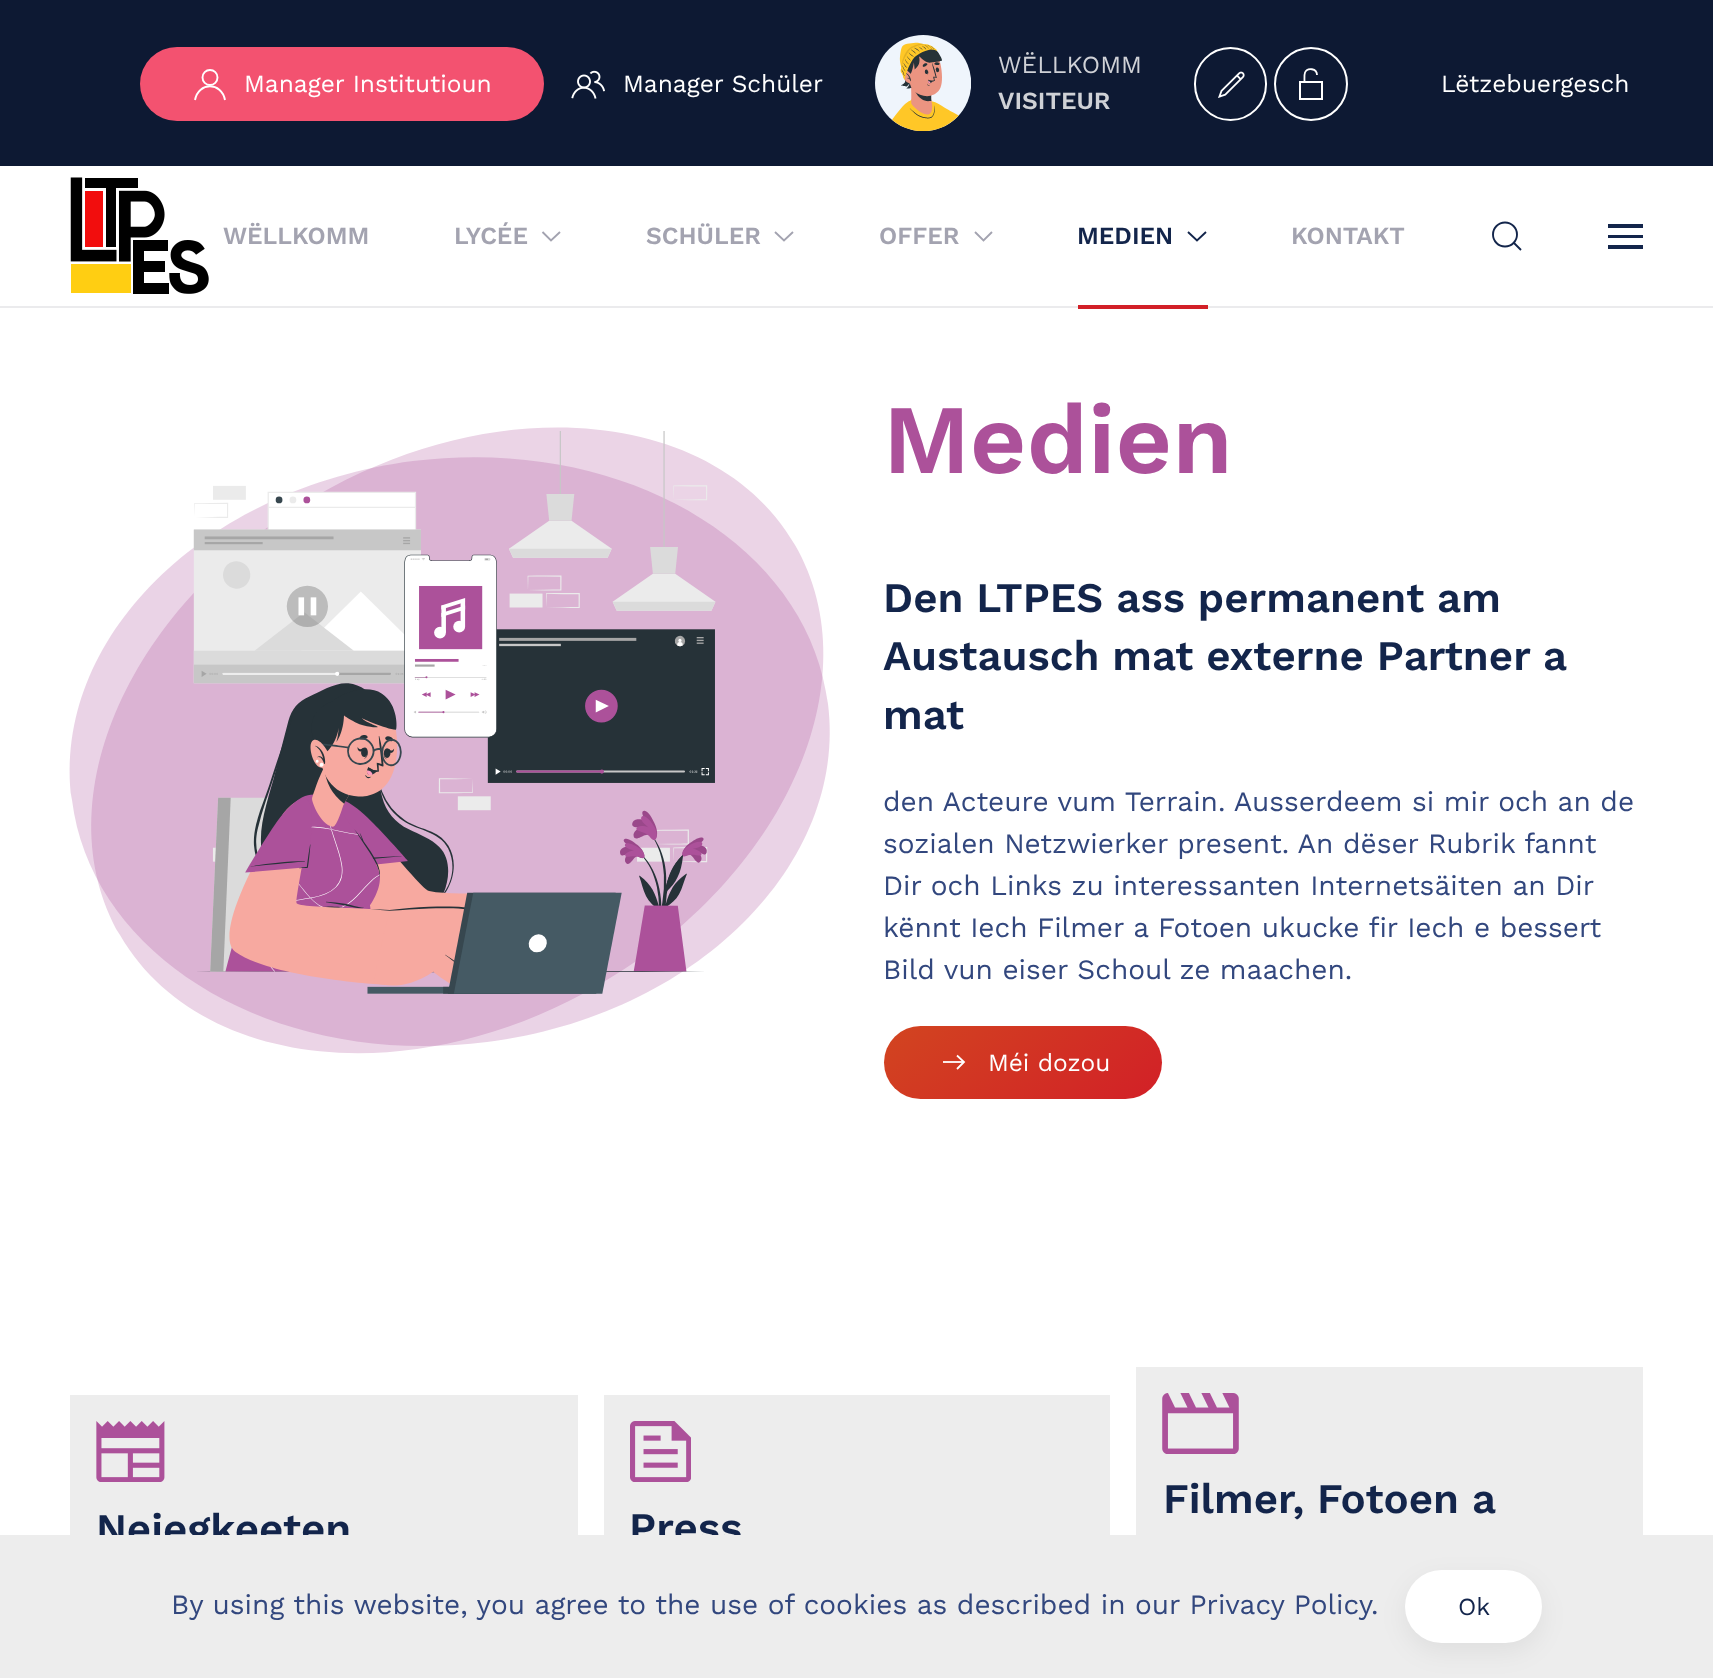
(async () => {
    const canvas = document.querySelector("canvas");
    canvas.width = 1713;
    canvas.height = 1678;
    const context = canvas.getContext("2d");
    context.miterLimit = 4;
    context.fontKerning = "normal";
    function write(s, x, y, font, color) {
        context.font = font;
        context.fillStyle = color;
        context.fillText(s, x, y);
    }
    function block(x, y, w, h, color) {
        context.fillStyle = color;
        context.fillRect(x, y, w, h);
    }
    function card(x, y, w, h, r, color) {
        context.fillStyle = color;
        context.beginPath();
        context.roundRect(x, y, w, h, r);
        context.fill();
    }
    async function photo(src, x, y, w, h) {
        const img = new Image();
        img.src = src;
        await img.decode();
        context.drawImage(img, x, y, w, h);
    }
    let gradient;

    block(0, 0, 1713, 1678, "rgb(255, 255, 255)");
    block(0, 0, 1713, 166, "rgb(13, 25, 51)");
    card(140, 47, 404, 74, 37, "rgb(243, 82, 112)");
    context.beginPath();
    context.arc(210, 77.5, 7.5, 0, Math.PI * 2);
    context.strokeStyle = "rgb(255, 255, 255)";
    context.lineWidth = 1.9;
    context.stroke();
    context.beginPath();
    context.moveTo(195, 100);
    context.bezierCurveTo(198.5, 81.5, 221.5, 82, 225, 100);
    context.stroke();
    write("Manager Institutioun", 244, 92, "24.5px Work Sans", "rgb(255, 255, 255)");
    await photo("media/1.png", 571, 70, 34, 29);
    write("Manager Schüler", 623, 92, "24.5px Work Sans", "rgb(255, 255, 255)");
    await photo("media/2.png", 875, 35, 96, 96);
    write("WËLLKOMM", 998, 73, "24.5px Work Sans", "rgb(207, 209, 214)");
    write("VISITEUR", 998, 109, "600 24.5px Work Sans", "rgb(207, 209, 214)");
    context.beginPath();
    context.roundRect(1195, 48, 71, 72, 35.5);
    context.lineWidth = 2;
    context.stroke();
    await photo("media/3.png", 1218, 71, 27, 27);
    context.beginPath();
    context.arc(1311, 84, 36, 0, Math.PI * 2);
    context.stroke();
    context.strokeRect(1300, 82, 22, 17);
    context.beginPath();
    context.moveTo(1304.5, 81.5);
    context.bezierCurveTo(1304.5, 78.5, 1304, 75, 1305, 72.5);
    context.bezierCurveTo(1307.5, 67, 1317, 68.5, 1317, 75);
    context.lineWidth = 1.8;
    context.stroke();
    write("Lëtzebuergesch", 1441, 92, "24.5px Work Sans", "rgb(255, 255, 255)");
    block(0, 306, 1713, 2, "rgb(235, 235, 237)");
    await photo("media/4.png", 70, 177, 139, 117);
    write("WËLLKOMM", 223, 244, "600 24.5px Work Sans", "rgb(163, 163, 176)");
    write("LYCÉE", 454, 244, "600 24.5px Work Sans", "rgb(163, 163, 176)");
    context.beginPath();
    context.moveTo(542.5, 232);
    context.lineTo(551, 240.5);
    context.lineTo(560, 232);
    context.strokeStyle = "rgb(163, 163, 176)";
    context.lineWidth = 1.9;
    context.stroke();
    write("SCHÜLER", 646, 244, "600 24.5px Work Sans", "rgb(163, 163, 176)");
    context.beginPath();
    context.moveTo(775, 232);
    context.lineTo(784, 240.5);
    context.lineTo(793, 232);
    context.stroke();
    write("OFFER", 879, 244, "600 24.5px Work Sans", "rgb(163, 163, 176)");
    context.beginPath();
    context.moveTo(975, 232);
    context.lineTo(983.5, 240.5);
    context.lineTo(992, 232);
    context.stroke();
    write("MEDIEN", 1077, 244, "600 24.5px Work Sans", "rgb(19, 37, 75)");
    context.beginPath();
    context.moveTo(1188, 232);
    context.lineTo(1197, 240.5);
    context.lineTo(1206, 232);
    context.strokeStyle = "rgb(19, 37, 75)";
    context.stroke();
    block(1078, 305, 130, 4, "rgb(210, 32, 39)");
    write("KONTAKT", 1291, 244, "600 24.5px Work Sans", "rgb(163, 163, 176)");
    context.beginPath();
    context.arc(1505, 234.5, 12, 0, Math.PI * 2);
    context.stroke();
    context.beginPath();
    context.moveTo(1514, 243);
    context.lineTo(1521, 250);
    context.closePath();
    context.stroke();
    block(1608, 224, 35, 4, "rgb(19, 37, 75)");
    block(1608, 235, 35, 3, "rgb(19, 37, 75)");
    block(1608, 245, 35, 4, "rgb(19, 37, 75)");
    context.fillStyle = "rgb(235, 212, 230)";
    context.beginPath();
    context.moveTo(316, 496);
    context.bezierCurveTo(502, 388, 717, 410, 795, 545);
    context.bezierCurveTo(873, 680, 785, 877, 599, 985);
    context.bezierCurveTo(412, 1093, 198, 1070, 120, 935);
    context.bezierCurveTo(42, 800, 130, 603, 316, 496);
    context.closePath();
    context.fill("evenodd");
    context.fillStyle = "rgba(172, 81, 154, 0.25)";
    context.beginPath();
    context.moveTo(413, 461);
    context.bezierCurveTo(622, 435, 808, 543, 828, 704);
    context.bezierCurveTo(848, 864, 695, 1016, 487, 1042);
    context.bezierCurveTo(278, 1069, 92, 960, 72, 800);
    context.bezierCurveTo(51, 639, 204, 488, 413, 461);
    context.closePath();
    context.fill("evenodd");
    await photo("media/5.png", 193, 431, 523, 563);
    write("Medien", 883, 473, "600 98px Work Sans", "rgb(172, 81, 154)");
    write("Den LTPES ass permanent am", 883, 612, "600 42px Work Sans", "rgb(19, 37, 75)");
    write("Austausch mat externe Partner a", 883, 670, "600 42px Work Sans", "rgb(19, 37, 75)");
    write("mat", 883, 729, "600 42px Work Sans", "rgb(19, 37, 75)");
    write("den Acteure vum Terrain. Ausserdeem si mir och an de", 883, 811, "28px Work Sans", "rgb(50, 71, 126)");
    write("sozialen Netzwierker present. An dëser Rubrik fannt", 883, 853, "28px Work Sans", "rgb(50, 71, 126)");
    write("Dir och Links zu interessanten Internetsäiten an Dir", 883, 895, "28px Work Sans", "rgb(50, 71, 126)");
    write("kënnt Iech Filmer a Fotoen ukucke fir Iech e bessert", 883, 937, "28px Work Sans", "rgb(50, 71, 126)");
    write("Bild vun eiser Schoul ze maachen.", 883, 979, "28px Work Sans", "rgb(50, 71, 126)");
    gradient = context.createLinearGradient(1098, 1152, 947, 972);
    gradient.addColorStop(0, "rgb(210, 32, 39)");
    gradient.addColorStop(1, "rgb(210, 69, 32)");
    context.fillStyle = gradient;
    context.beginPath();
    context.roundRect(884, 1026, 278, 73, 36.5);
    context.fill();
    gradient = context.createLinearGradient(1098, 1152, 947, 972);
    gradient.addColorStop(0, "rgb(251, 233, 233)");
    gradient.addColorStop(1, "rgb(251, 236, 233)");
    context.fillStyle = gradient;
    context.fillRect(943, 1061, 21, 2);
    context.beginPath();
    context.moveTo(957, 1069);
    context.lineTo(964, 1062);
    context.lineTo(957, 1055.5);
    context.strokeStyle = "rgb(255, 255, 255)";
    context.lineWidth = 1.8;
    context.stroke();
    write("Méi dozou", 988, 1071, "24.5px Work Sans", "rgb(255, 255, 255)");
    block(1136, 1367, 507, 168, "rgb(237, 237, 237)");
    await photo("media/6.png", 1162, 1393, 77, 61);
    write("Filmer, Fotoen a", 1163, 1513, "600 42px Work Sans", "rgb(19, 37, 75)");
    block(70, 1395, 508, 140, "rgb(237, 237, 237)");
    await photo("media/7.png", 96, 1421, 69, 61);
    write("Neiegkeeten", 96, 1543, "600 42px Work Sans", "rgb(19, 37, 75)");
    block(604, 1395, 506, 140, "rgb(237, 237, 237)");
    await photo("media/8.png", 630, 1421, 61, 61);
    write("Press", 629, 1542, "600 42px Work Sans", "rgb(19, 37, 75)");
    block(0, 1535, 1713, 143, "rgb(237, 237, 237)");
    write("By using this website, you agree to the use of cookies as described in our Privacy Policy.", 171, 1614, "28px Work Sans", "rgb(50, 71, 126)");
    context.fillStyle = "rgba(0, 0, 0, 0.06)";
    context.filter = "blur(13px)";
    context.beginPath();
    context.roundRect(1405, 1579, 137, 73, 36.5);
    context.fill();
    context.filter = "none";
    card(1405, 1570, 137, 73, 36.5, "rgb(255, 255, 255)");
    write("Ok", 1458, 1615, "24.5px Work Sans", "rgb(19, 37, 75)");
})();
